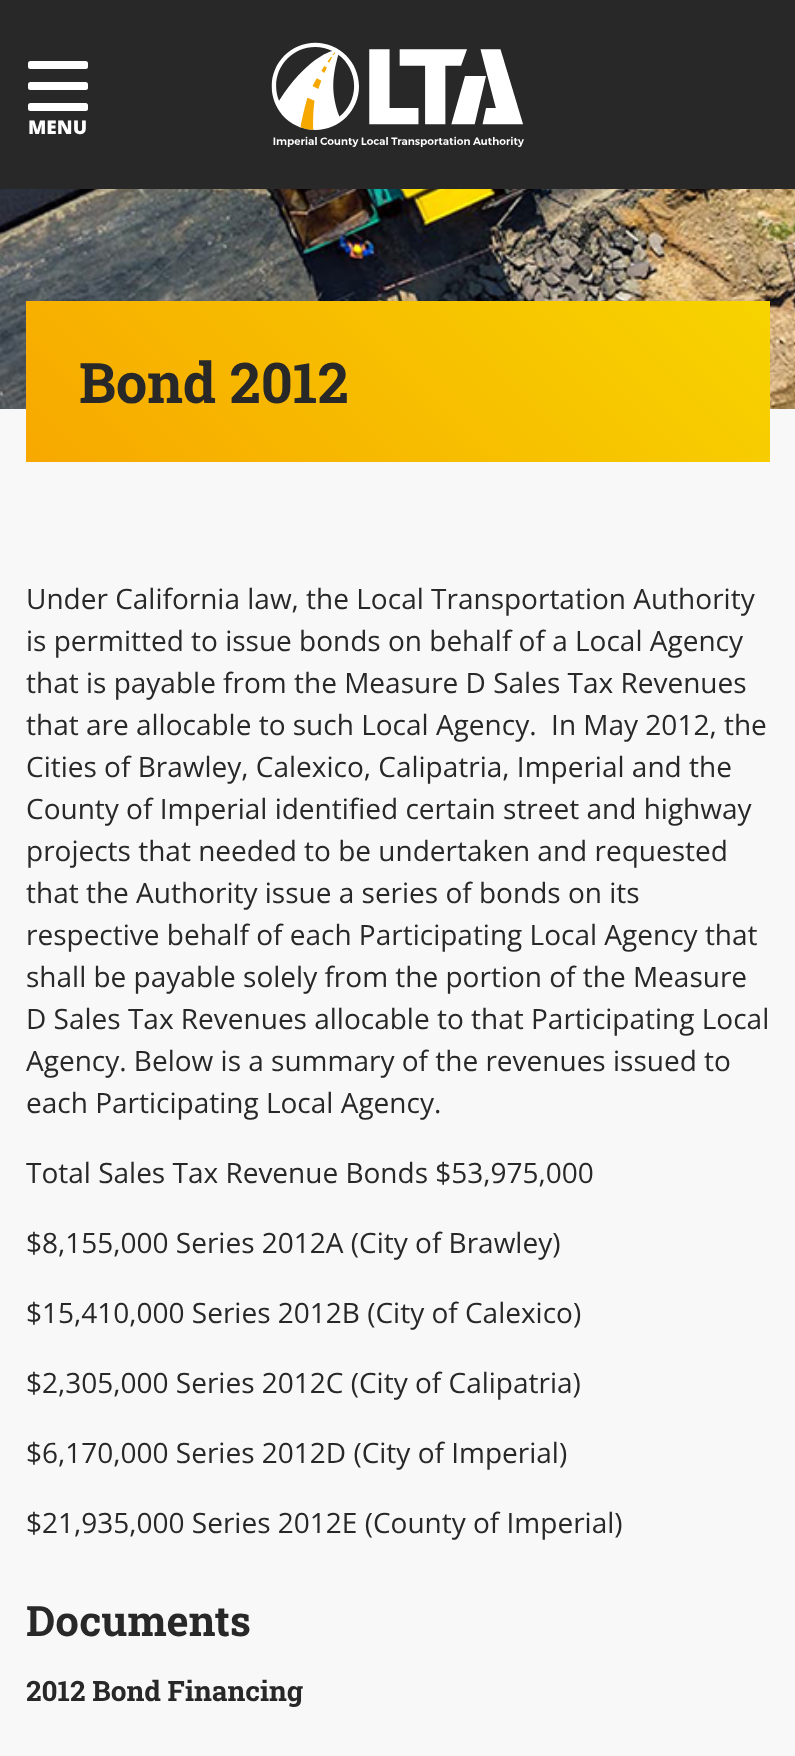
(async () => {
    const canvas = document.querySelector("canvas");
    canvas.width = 795;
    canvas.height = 1756;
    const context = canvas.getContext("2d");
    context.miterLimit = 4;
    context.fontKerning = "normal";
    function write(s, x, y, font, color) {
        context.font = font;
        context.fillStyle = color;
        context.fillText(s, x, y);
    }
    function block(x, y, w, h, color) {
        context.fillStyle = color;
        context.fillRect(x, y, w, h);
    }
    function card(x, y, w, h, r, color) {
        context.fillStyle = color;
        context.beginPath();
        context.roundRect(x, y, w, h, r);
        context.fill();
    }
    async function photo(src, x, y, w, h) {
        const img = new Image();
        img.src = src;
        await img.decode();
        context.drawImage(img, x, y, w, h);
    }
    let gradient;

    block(0, 0, 795, 1756, "rgb(248, 248, 248)");
    block(0, 0, 795, 189, "rgb(40, 40, 40)");
    card(28, 61, 60, 8, 2.5, "rgb(255, 255, 255)");
    card(28, 82, 60, 8, 2.5, "rgb(255, 255, 255)");
    card(28, 103, 60, 8, 2.5, "rgb(255, 255, 255)");
    write("MENU", 28, 134, "800 19px Open Sans", "rgb(255, 255, 255)");
    await photo("media/1.png", 271, 42, 253, 105);
    await photo("media/2.png", 0, 189, 795, 220);
    gradient = context.createLinearGradient(624, 155, 172, 608);
    gradient.addColorStop(0, "rgb(247, 212, 0)");
    gradient.addColorStop(1, "rgb(247, 168, 0)");
    context.fillStyle = gradient;
    context.fillRect(26, 301, 744, 161);
    write("Bond 2012", 79, 403, "bold 56px Roboto Slab", "rgb(40, 40, 40)");
    write("Under California law, the Local Transportation Authority", 26, 609, "28px Open Sans", "rgb(40, 40, 40)");
    write("is permitted to issue bonds on behalf of a Local Agency", 26, 651, "28px Open Sans", "rgb(40, 40, 40)");
    write("that is payable from the Measure D Sales Tax Revenues", 26, 693, "28px Open Sans", "rgb(40, 40, 40)");
    write("that are allocable to such Local Agency.  In May 2012, the", 26, 735, "28px Open Sans", "rgb(40, 40, 40)");
    write("Cities of Brawley, Calexico, Calipatria, Imperial and the", 26, 777, "28px Open Sans", "rgb(40, 40, 40)");
    write("County of Imperial identified certain street and highway", 26, 819, "28px Open Sans", "rgb(40, 40, 40)");
    write("projects that needed to be undertaken and requested", 26, 861, "28px Open Sans", "rgb(40, 40, 40)");
    write("that the Authority issue a series of bonds on its", 26, 903, "28px Open Sans", "rgb(40, 40, 40)");
    write("respective behalf of each Participating Local Agency that", 26, 945, "28px Open Sans", "rgb(40, 40, 40)");
    write("shall be payable solely from the portion of the Measure", 26, 987, "28px Open Sans", "rgb(40, 40, 40)");
    write("D Sales Tax Revenues allocable to that Participating Local", 26, 1029, "28px Open Sans", "rgb(40, 40, 40)");
    write("Agency. Below is a summary of the revenues issued to", 26, 1071, "28px Open Sans", "rgb(40, 40, 40)");
    write("each Participating Local Agency.", 26, 1113, "28px Open Sans", "rgb(40, 40, 40)");
    write("Total Sales Tax Revenue Bonds $53,975,000", 26, 1183, "28px Open Sans", "rgb(40, 40, 40)");
    write("$8,155,000 Series 2012A (City of Brawley)", 26, 1253, "28px Open Sans", "rgb(40, 40, 40)");
    write("$15,410,000 Series 2012B (City of Calexico)", 26, 1323, "28px Open Sans", "rgb(40, 40, 40)");
    write("$2,305,000 Series 2012C (City of Calipatria)", 26, 1393, "28px Open Sans", "rgb(40, 40, 40)");
    write("$6,170,000 Series 2012D (City of Imperial)", 26, 1463, "28px Open Sans", "rgb(40, 40, 40)");
    write("$21,935,000 Series 2012E (County of Imperial)", 26, 1533, "28px Open Sans", "rgb(40, 40, 40)");
    write("Documents", 26, 1636, "bold 42px Roboto Slab", "rgb(40, 40, 40)");
    write("2012 Bond Financing", 26, 1701, "bold 28px Roboto Slab", "rgb(40, 40, 40)");
})();
